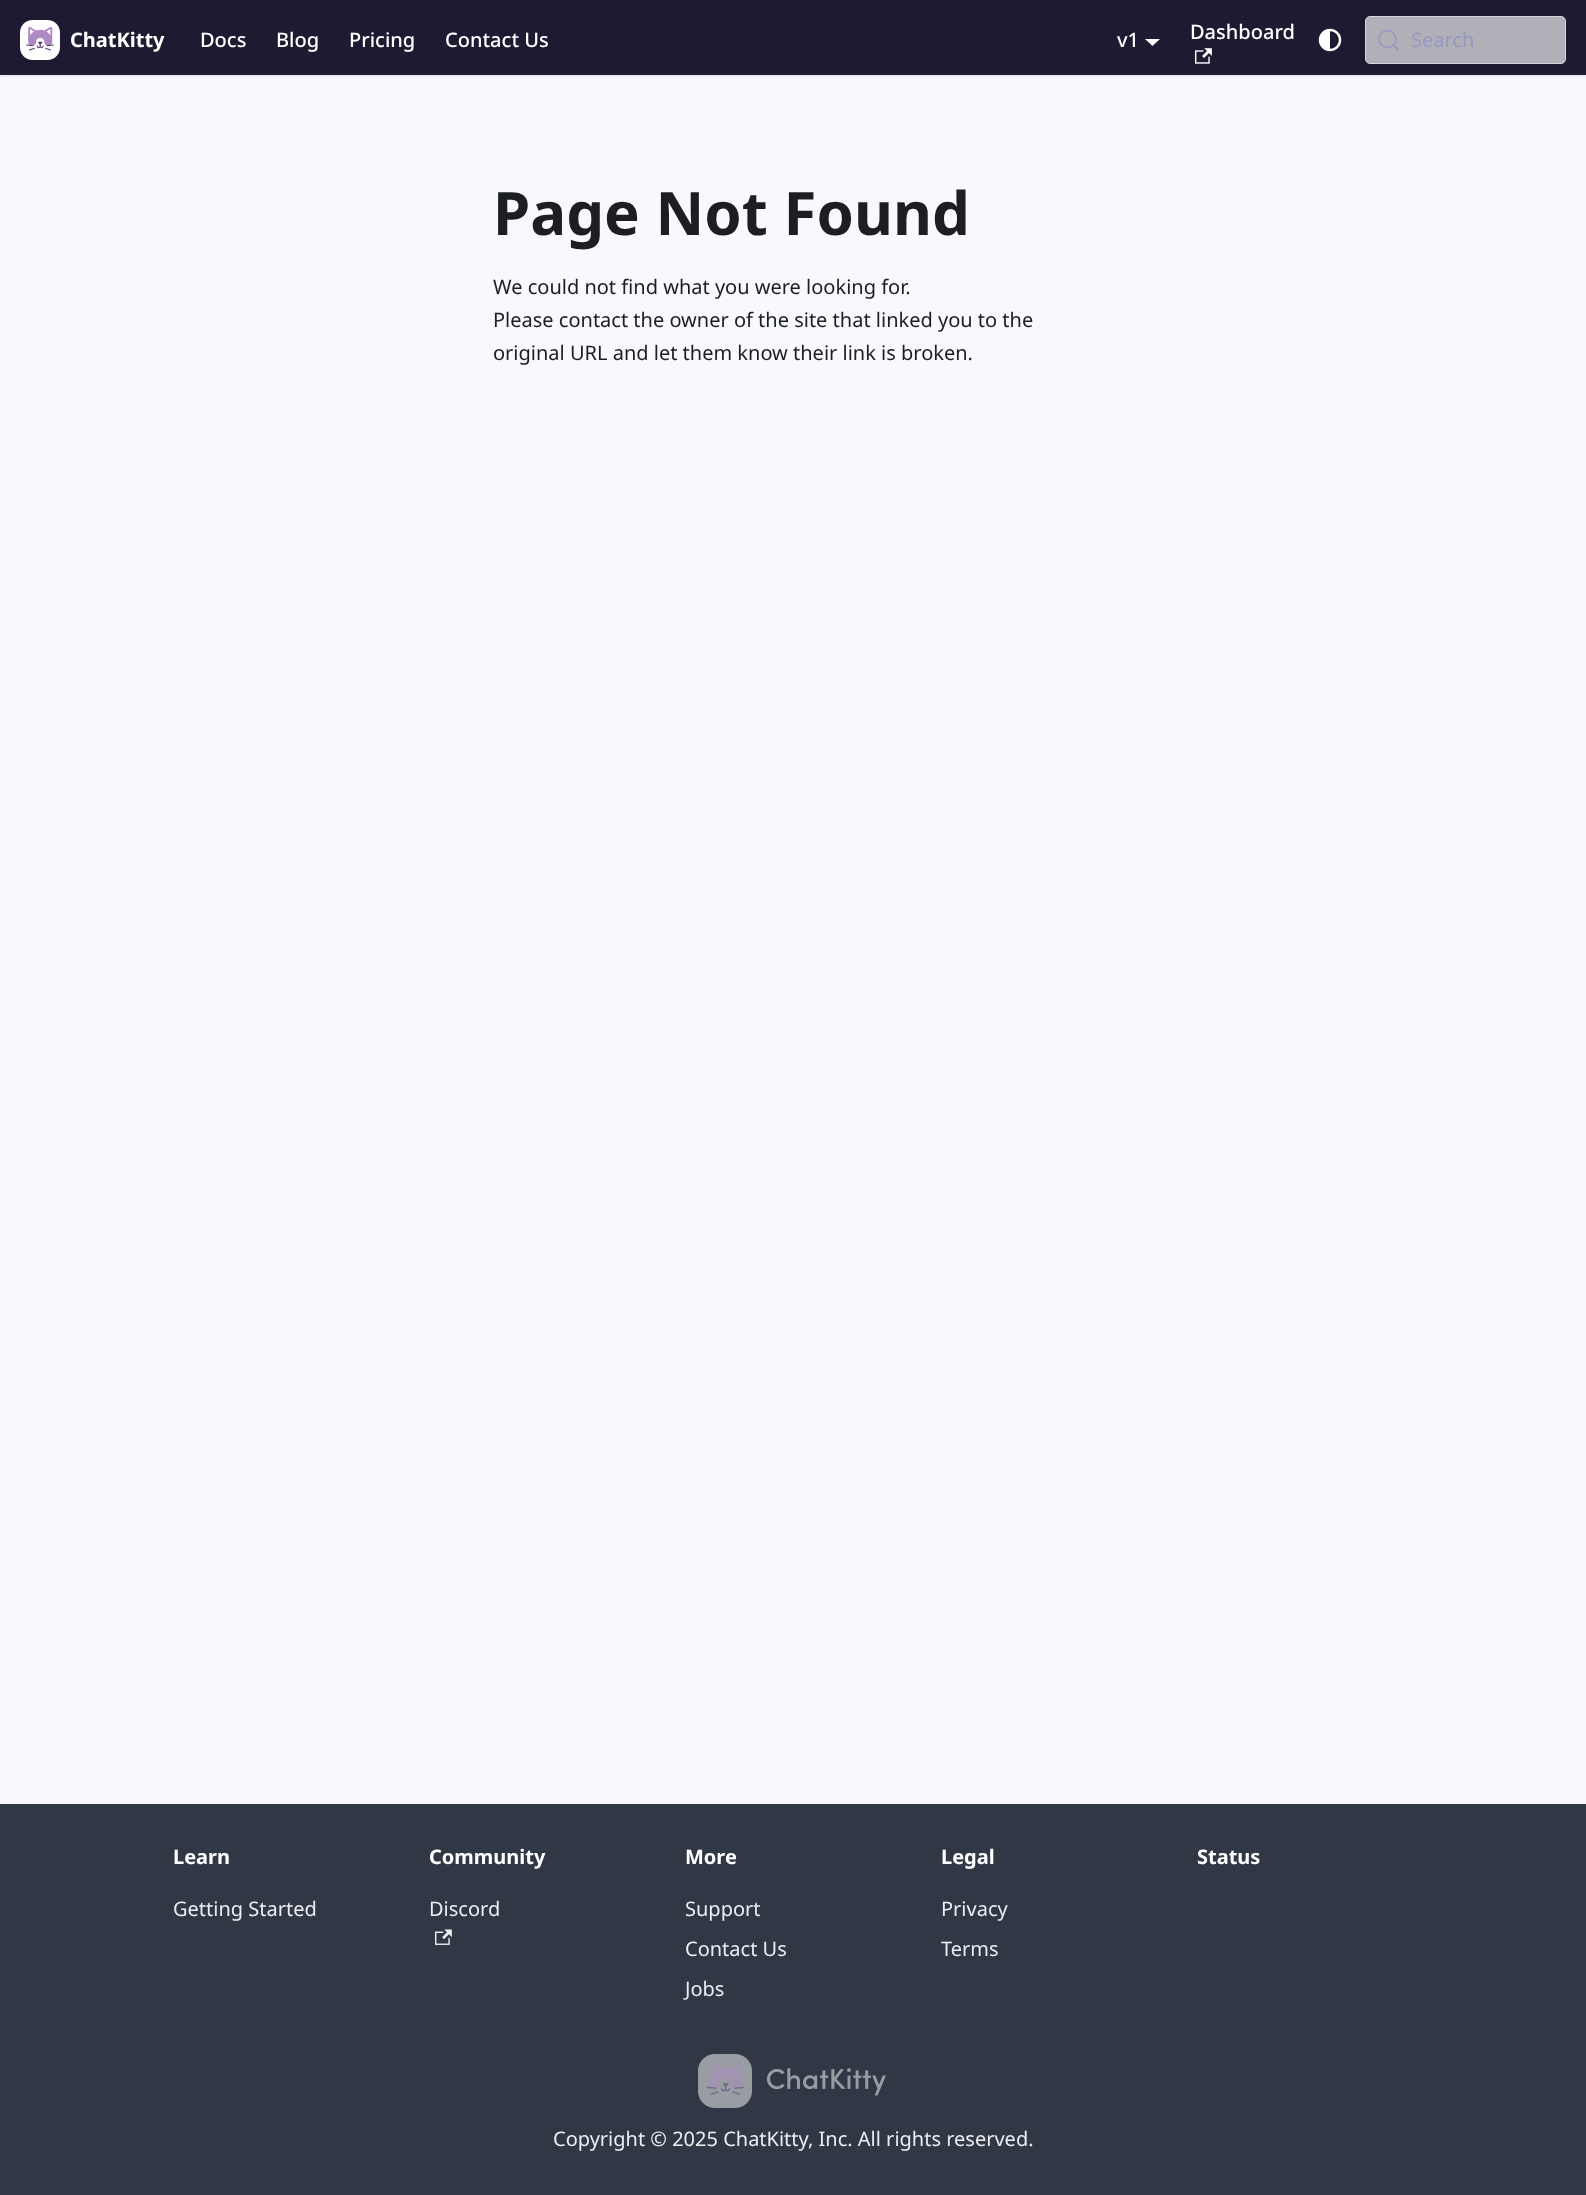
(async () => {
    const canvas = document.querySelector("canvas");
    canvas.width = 1586;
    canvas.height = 2195;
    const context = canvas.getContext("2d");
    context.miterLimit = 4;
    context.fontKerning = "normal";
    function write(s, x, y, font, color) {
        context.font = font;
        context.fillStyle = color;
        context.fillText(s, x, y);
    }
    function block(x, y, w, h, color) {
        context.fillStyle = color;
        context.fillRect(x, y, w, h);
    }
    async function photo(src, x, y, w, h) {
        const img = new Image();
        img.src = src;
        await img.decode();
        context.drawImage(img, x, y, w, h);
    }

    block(0, 0, 1586, 2195, "rgb(248, 249, 255)");
    context.fillStyle = "rgba(0, 0, 0, 0.1)";
    context.filter = "blur(1px)";
    context.beginPath();
    context.rect(0, 1, 1586, 75);
    context.fill();
    context.filter = "none";
    block(0, 0, 1586, 75, "rgb(31, 26, 50)");
    await photo("media/1.png", 20, 20, 40, 40);
    write("ChatKitty", 70, 47, "bold 20px Noto Sans", "rgb(255, 255, 255)");
    write("Docs", 200, 47, "500 20px Noto Sans", "rgb(255, 255, 255)");
    write("Blog", 276, 47, "500 20px Noto Sans", "rgb(255, 255, 255)");
    write("Pricing", 349, 47, "500 20px Noto Sans", "rgb(255, 255, 255)");
    write("Contact Us", 445, 47, "500 20px Noto Sans", "rgb(255, 255, 255)");
    write("v1", 1117, 47, "500 20px Noto Sans", "rgb(255, 255, 255)");
    context.beginPath();
    context.moveTo(1145, 39);
    context.lineTo(1160, 39);
    context.lineTo(1152.5, 46);
    context.closePath();
    context.fill();
    write("Dashboard", 1190, 39, "500 20px Noto Sans", "rgb(255, 255, 255)");
    await photo("media/2.png", 1195, 48, 17, 16);
    await photo("media/3.png", 1318, 28, 24, 24);
    context.fillStyle = "rgb(177, 175, 183)";
    context.beginPath();
    context.roundRect(1365.5, 16.5, 200, 47, 4.5);
    context.fill();
    context.strokeStyle = "rgb(214, 214, 231)";
    context.stroke();
    context.beginPath();
    context.arc(1387.5, 39, 8.5, 0, Math.PI * 2);
    context.strokeStyle = "rgb(150, 152, 195)";
    context.lineWidth = 1.5;
    context.stroke();
    context.beginPath();
    context.moveTo(1398, 49.5);
    context.lineTo(1393.5, 45);
    context.lineWidth = 1.7;
    context.lineCap = "round";
    context.lineJoin = "round";
    context.stroke();
    write("Search", 1411, 47, "20px Noto Sans", "rgb(150, 152, 195)");
    write("Page Not Found", 493, 235, "bold 60px Noto Sans", "rgb(28, 30, 33)");
    write("We could not find what you were looking for.", 493, 294, "20px Noto Sans", "rgb(28, 30, 33)");
    write("Please contact the owner of the site that linked you to the", 493, 327, "20px Noto Sans", "rgb(28, 30, 33)");
    write("original URL and let them know their link is broken.", 493, 360, "20px Noto Sans", "rgb(28, 30, 33)");
    block(0, 1804, 1586, 391, "rgb(48, 56, 70)");
    write("Learn", 173, 1864, "bold 20px Noto Sans", "rgb(255, 255, 255)");
    write("Getting Started", 173, 1916, "20px Noto Sans", "rgb(235, 237, 240)");
    write("Community", 429, 1864, "bold 20px Noto Sans", "rgb(255, 255, 255)");
    write("Discord", 429, 1916, "20px Noto Sans", "rgb(235, 237, 240)");
    await photo("media/4.png", 435, 1929, 17, 16);
    write("More", 685, 1864, "bold 20px Noto Sans", "rgb(255, 255, 255)");
    write("Support", 685, 1916, "20px Noto Sans", "rgb(235, 237, 240)");
    write("Contact Us", 685, 1956, "20px Noto Sans", "rgb(235, 237, 240)");
    write("Jobs", 685, 1996, "20px Noto Sans", "rgb(235, 237, 240)");
    write("Legal", 941, 1864, "bold 20px Noto Sans", "rgb(255, 255, 255)");
    write("Privacy", 941, 1916, "20px Noto Sans", "rgb(235, 237, 240)");
    write("Terms", 941, 1956, "20px Noto Sans", "rgb(235, 237, 240)");
    write("Status", 1197, 1864, "bold 20px Noto Sans", "rgb(255, 255, 255)");
    await photo("media/5.png", 698, 2054, 188, 54);
    write("Copyright © 2025 ChatKitty, Inc. All rights reserved.", 553, 2146, "20px Noto Sans", "rgb(235, 237, 240)");
})();
